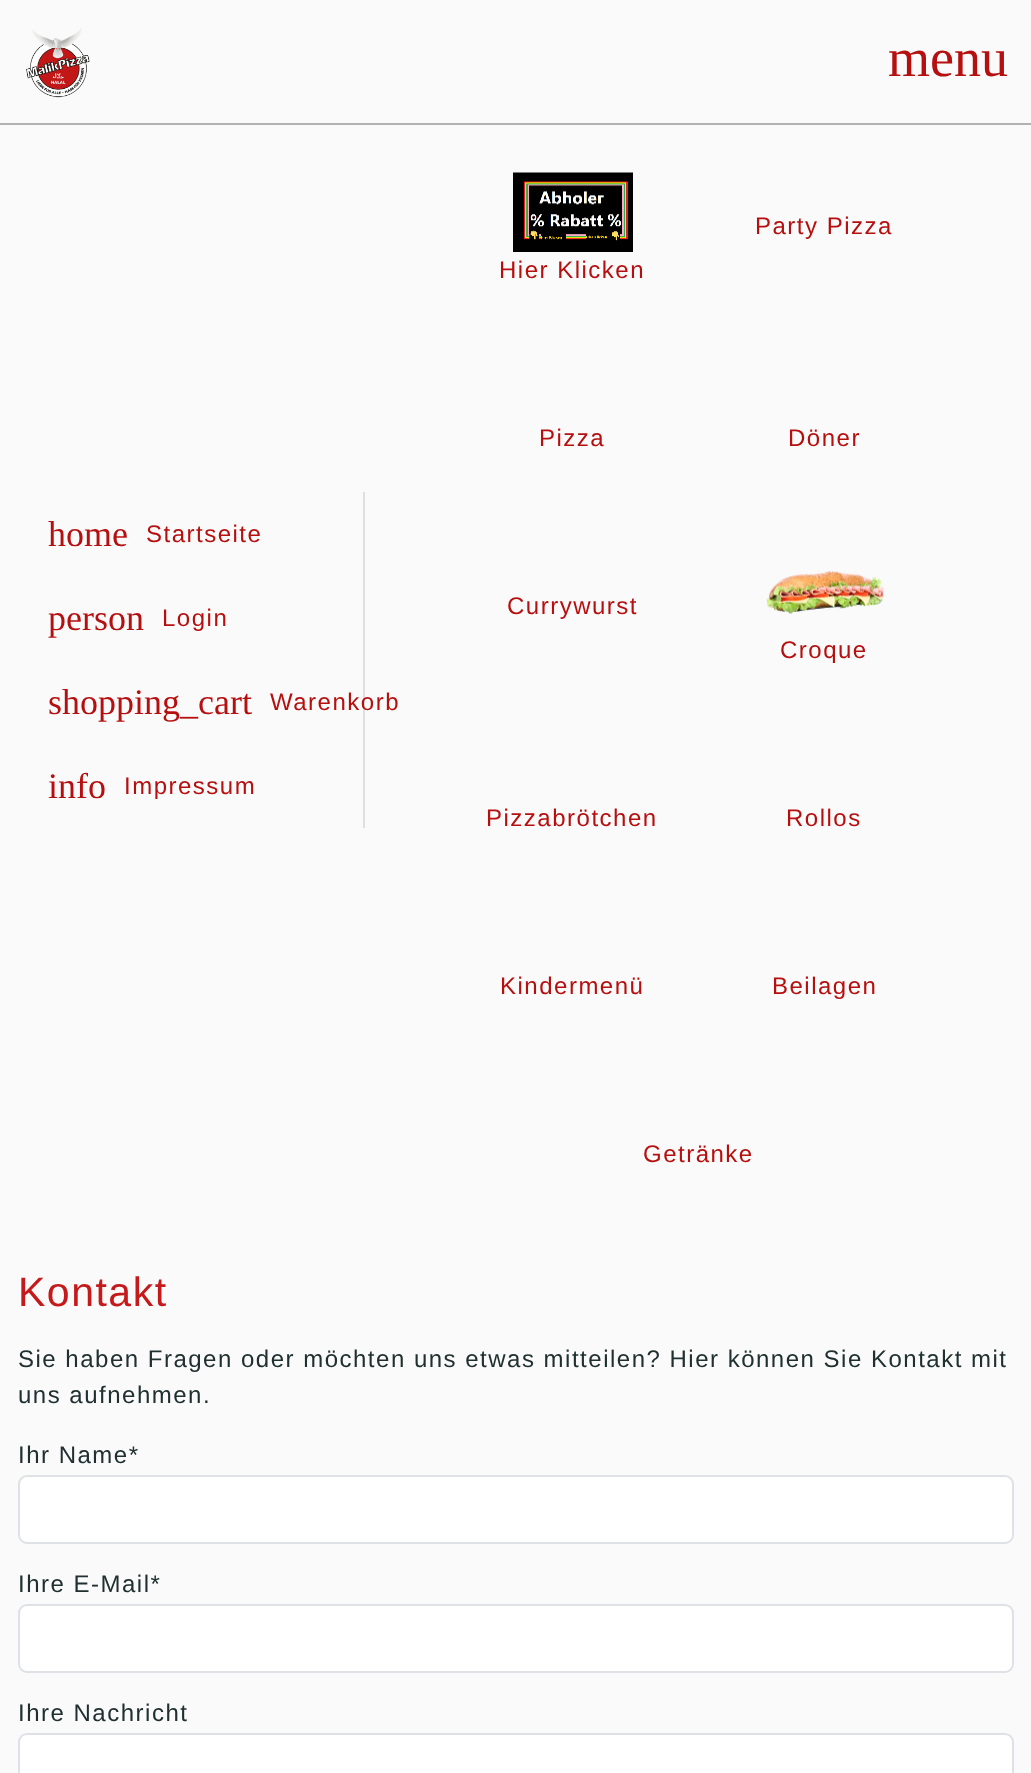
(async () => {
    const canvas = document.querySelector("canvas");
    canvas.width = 1031;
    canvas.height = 1773;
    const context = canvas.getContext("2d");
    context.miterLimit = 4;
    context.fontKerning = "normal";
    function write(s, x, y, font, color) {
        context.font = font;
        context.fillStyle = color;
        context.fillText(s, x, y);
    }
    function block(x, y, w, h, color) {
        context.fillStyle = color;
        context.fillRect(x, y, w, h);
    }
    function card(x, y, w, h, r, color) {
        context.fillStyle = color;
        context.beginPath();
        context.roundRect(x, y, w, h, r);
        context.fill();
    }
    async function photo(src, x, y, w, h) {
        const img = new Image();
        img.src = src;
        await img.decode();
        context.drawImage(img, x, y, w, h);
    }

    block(0, 0, 1031, 1773, "rgb(250, 250, 250)");
    block(0, 123, 1031, 2, "rgb(177, 177, 177)");
    await photo("media/1.png", 26, 28, 64, 70);
    write("menu", 888, 76, "54px Liberation Serif", "rgb(182, 15, 15)");
    block(363, 492, 2, 336, "rgb(223, 223, 223)");
    write("home", 48, 546, "36px Liberation Serif", "rgb(182, 15, 15)");
    context.letterSpacing = "1.5px";
    write("Startseite", 146, 542, "24px Liberation Sans", "rgb(182, 15, 15)");
    context.letterSpacing = "0px";
    write("person", 48, 630, "36px Liberation Serif", "rgb(182, 15, 15)");
    context.letterSpacing = "1.5px";
    write("Login", 162, 626, "24px Liberation Sans", "rgb(182, 15, 15)");
    context.letterSpacing = "0px";
    write("shopping_cart", 48, 714, "36px Liberation Serif", "rgb(182, 15, 15)");
    context.letterSpacing = "1.5px";
    write("Warenkorb", 270, 710, "24px Liberation Sans", "rgb(182, 15, 15)");
    context.letterSpacing = "0px";
    write("info", 48, 798, "36px Liberation Serif", "rgb(182, 15, 15)");
    context.letterSpacing = "1.5px";
    write("Impressum", 124, 794, "24px Liberation Sans", "rgb(182, 15, 15)");
    write("Party Pizza", 755, 234, "24px Liberation Sans", "rgb(182, 15, 15)");
    await photo("media/2.png", 513, 172, 120, 80);
    write("Hier Klicken", 499, 278, "24px Liberation Sans", "rgb(182, 15, 15)");
    write("Pizza", 539, 446, "24px Liberation Sans", "rgb(182, 15, 15)");
    write("Döner", 788, 446, "24px Liberation Sans", "rgb(182, 15, 15)");
    write("Currywurst", 507, 614, "24px Liberation Sans", "rgb(182, 15, 15)");
    await photo("media/3.png", 766, 571, 118, 43);
    write("Croque", 780, 658, "24px Liberation Sans", "rgb(182, 15, 15)");
    write("Pizzabrötchen", 486, 826, "24px Liberation Sans", "rgb(182, 15, 15)");
    write("Rollos", 786, 826, "24px Liberation Sans", "rgb(182, 15, 15)");
    write("Kindermenü", 500, 994, "24px Liberation Sans", "rgb(182, 15, 15)");
    write("Beilagen", 772, 994, "24px Liberation Sans", "rgb(182, 15, 15)");
    write("Getränke", 643, 1162, "24px Liberation Sans", "rgb(182, 15, 15)");
    write("Kontakt", 18, 1306, "41px Liberation Sans", "rgb(197, 26, 27)");
    write("Sie haben Fragen oder möchten uns etwas mitteilen? Hier können Sie Kontakt mit", 18, 1367, "24px Liberation Sans", "rgb(32, 48, 48)");
    write("uns aufnehmen.", 18, 1403, "24px Liberation Sans", "rgb(32, 48, 48)");
    write("Ihr Name*", 18, 1463, "24px Liberation Sans", "rgb(32, 48, 48)");
    context.fillStyle = "rgb(255, 255, 255)";
    context.beginPath();
    context.roundRect(19, 1476, 994, 67, 8);
    context.fill();
    context.strokeStyle = "rgb(222, 226, 230)";
    context.lineWidth = 2;
    context.stroke();
    write("Ihre E-Mail*", 18, 1592, "24px Liberation Sans", "rgb(32, 48, 48)");
    context.fillStyle = "rgb(255, 255, 255)";
    context.beginPath();
    context.roundRect(19, 1605, 994, 67, 8);
    context.fill();
    context.stroke();
    write("Ihre Nachricht", 18, 1721, "24px Liberation Sans", "rgb(32, 48, 48)");
    card(20, 1734, 993, 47, 8, "rgb(255, 255, 255)");
    context.beginPath();
    context.roundRect(19, 1734, 994, 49, 8);
    context.stroke();
})();
